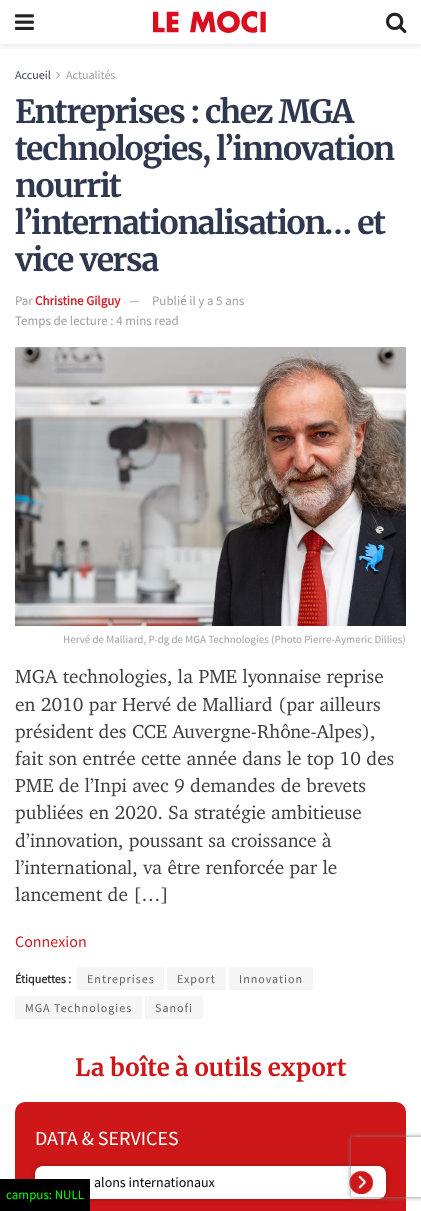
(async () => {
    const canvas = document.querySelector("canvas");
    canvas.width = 421;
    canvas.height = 1211;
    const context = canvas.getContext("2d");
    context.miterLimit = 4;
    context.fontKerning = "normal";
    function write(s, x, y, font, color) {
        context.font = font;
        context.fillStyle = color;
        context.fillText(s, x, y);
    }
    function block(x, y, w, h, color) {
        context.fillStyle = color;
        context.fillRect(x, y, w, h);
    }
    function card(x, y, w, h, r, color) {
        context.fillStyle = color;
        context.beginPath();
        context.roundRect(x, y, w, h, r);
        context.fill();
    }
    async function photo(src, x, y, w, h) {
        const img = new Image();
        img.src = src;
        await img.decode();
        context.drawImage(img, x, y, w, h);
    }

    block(0, 0, 421, 1211, "rgb(255, 255, 255)");
    context.save();
    context.beginPath();
    context.rect(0, 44, 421, 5);
    context.clip();
    context.fillStyle = "rgba(0, 0, 0, 0.1)";
    context.filter = "blur(3px)";
    context.beginPath();
    context.rect(0, 2, 421, 44);
    context.fill();
    context.filter = "none";
    context.restore();
    await photo("media/1.png", 15, 14, 19, 16);
    await photo("media/2.png", 153, 11, 113, 22);
    await photo("media/3.png", 386, 12, 21, 22);
    write("Accueil", 15, 79, "12px Source Sans Pro", "rgb(57, 62, 79)");
    await photo("media/4.png", 56, 71, 4, 8);
    write("Actualités", 66, 79, "12px Source Sans Pro", "rgb(160, 160, 160)");
    context.letterSpacing = "-1.25px";
    write("Entreprises : chez MGA", 15, 123, "bold 32px Merriweather", "rgb(48, 56, 79)");
    write("technologies, l’innovation", 15, 160, "bold 32px Merriweather", "rgb(48, 56, 79)");
    write("nourrit", 15, 197, "bold 32px Merriweather", "rgb(48, 56, 79)");
    write("l’internationalisation… et", 15, 234, "bold 32px Merriweather", "rgb(48, 56, 79)");
    write("vice versa", 15, 271, "bold 32px Merriweather", "rgb(48, 56, 79)");
    context.letterSpacing = "0px";
    write("Par", 15, 305, "13px Source Sans Pro", "rgb(160, 160, 160)");
    write("Christine Gilguy", 35, 305, "bold 13px Source Sans Pro", "rgb(207, 32, 39)");
    write("—", 129, 305, "13px Source Sans Pro", "rgb(160, 160, 160)");
    write("Publié il y a 5 ans", 152, 305, "13px Source Sans Pro", "rgb(160, 160, 160)");
    write("Temps de lecture : 4 mins read", 15, 325, "13px Source Sans Pro", "rgb(160, 160, 160)");
    await photo("media/5.png", 15, 347, 391, 279);
    write("Hervé de Malliard, P-dg de MGA Technologies (Photo Pierre-Aymeric Dillies)", 63, 643, "11px Source Sans Pro", "rgb(160, 160, 160)");
    write("MGA technologies, la PME lyonnaise reprise", 15, 683, "19.25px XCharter", "rgb(61, 62, 64)");
    write("en 2010 par Hervé de Malliard (par ailleurs", 15, 711, "19.25px XCharter", "rgb(61, 62, 64)");
    write("président des CCE Auvergne-Rhône-Alpes),", 15, 738, "19.25px XCharter", "rgb(61, 62, 64)");
    write("fait son entrée cette année dans le top 10 des", 15, 765, "19.25px XCharter", "rgb(61, 62, 64)");
    write("PME de l’Inpi avec 9 demandes de brevets", 15, 792, "19.25px XCharter", "rgb(61, 62, 64)");
    write("publiées en 2020. Sa stratégie ambitieuse", 15, 819, "19.25px XCharter", "rgb(61, 62, 64)");
    write("d’innovation, poussant sa croissance à", 15, 847, "19.25px XCharter", "rgb(61, 62, 64)");
    write("l’international, va être renforcée par le", 15, 874, "19.25px XCharter", "rgb(61, 62, 64)");
    write("lancement de […]", 15, 901, "19.25px XCharter", "rgb(61, 62, 64)");
    write("Connexion", 15, 947, "16px Source Sans Pro", "rgb(207, 32, 39)");
    write("Étiquettes :", 15, 983, "bold 12px Source Sans Pro", "rgb(51, 51, 51)");
    block(77, 967, 87, 23, "rgb(245, 245, 245)");
    context.letterSpacing = "1px";
    write("Entreprises", 87, 983, "12px Source Sans Pro", "rgb(97, 97, 97)");
    block(167, 967, 59, 23, "rgb(245, 245, 245)");
    write("Export", 177, 983, "12px Source Sans Pro", "rgb(97, 97, 97)");
    block(229, 967, 84, 23, "rgb(245, 245, 245)");
    write("Innovation", 239, 983, "12px Source Sans Pro", "rgb(97, 97, 97)");
    block(15, 996, 127, 23, "rgb(245, 245, 245)");
    write("MGA Technologies", 25, 1012, "12px Source Sans Pro", "rgb(97, 97, 97)");
    block(145, 996, 58, 23, "rgb(245, 245, 245)");
    write("Sanofi", 155, 1012, "12px Source Sans Pro", "rgb(97, 97, 97)");
    context.letterSpacing = "0px";
    write("La boîte à outils export", 75, 1076, "bold 24px Merriweather", "rgb(205, 23, 25)");
    card(15, 1102, 391, 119, 10, "rgb(205, 23, 25)");
    write("DATA & SERVICES", 35, 1145, "20px Source Sans Pro", "rgb(255, 255, 255)");
    context.fillStyle = "rgba(0, 0, 0, 0.25)";
    context.filter = "blur(3px)";
    context.beginPath();
    context.roundRect(35, 1166, 351, 33, 8);
    context.fill();
    context.filter = "none";
    card(35, 1166, 351, 33, 8, "rgb(255, 255, 255)");
    write("alons internationaux", 94, 1187, "14px Source Sans Pro", "rgb(0, 0, 0)");
    await photo("media/6.png", 349, 1170, 24, 24);
    block(0, 1179, 90, 32, "rgb(0, 0, 0)");
    write("campus: NULL", 6, 1199, "13px Source Sans Pro", "rgb(0, 255, 0)");
    context.save();
    context.beginPath();
    context.moveTo(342, 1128);
    context.lineTo(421, 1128);
    context.lineTo(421, 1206);
    context.lineTo(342, 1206);
    context.closePath();
    context.moveTo(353, 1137);
    context.lineTo(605, 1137);
    context.bezierCurveTo(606, 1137, 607, 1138, 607, 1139);
    context.lineTo(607, 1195);
    context.bezierCurveTo(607, 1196, 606, 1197, 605, 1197);
    context.lineTo(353, 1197);
    context.bezierCurveTo(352, 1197, 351, 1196, 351, 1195);
    context.lineTo(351, 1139);
    context.bezierCurveTo(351, 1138, 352, 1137, 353, 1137);
    context.closePath();
    context.clip("evenodd");
    context.fillStyle = "rgb(128, 128, 128)";
    context.filter = "blur(2.5px)";
    context.beginPath();
    context.roundRect(351, 1137, 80, 60, 2);
    context.fill();
    context.filter = "none";
    context.restore();
})();
